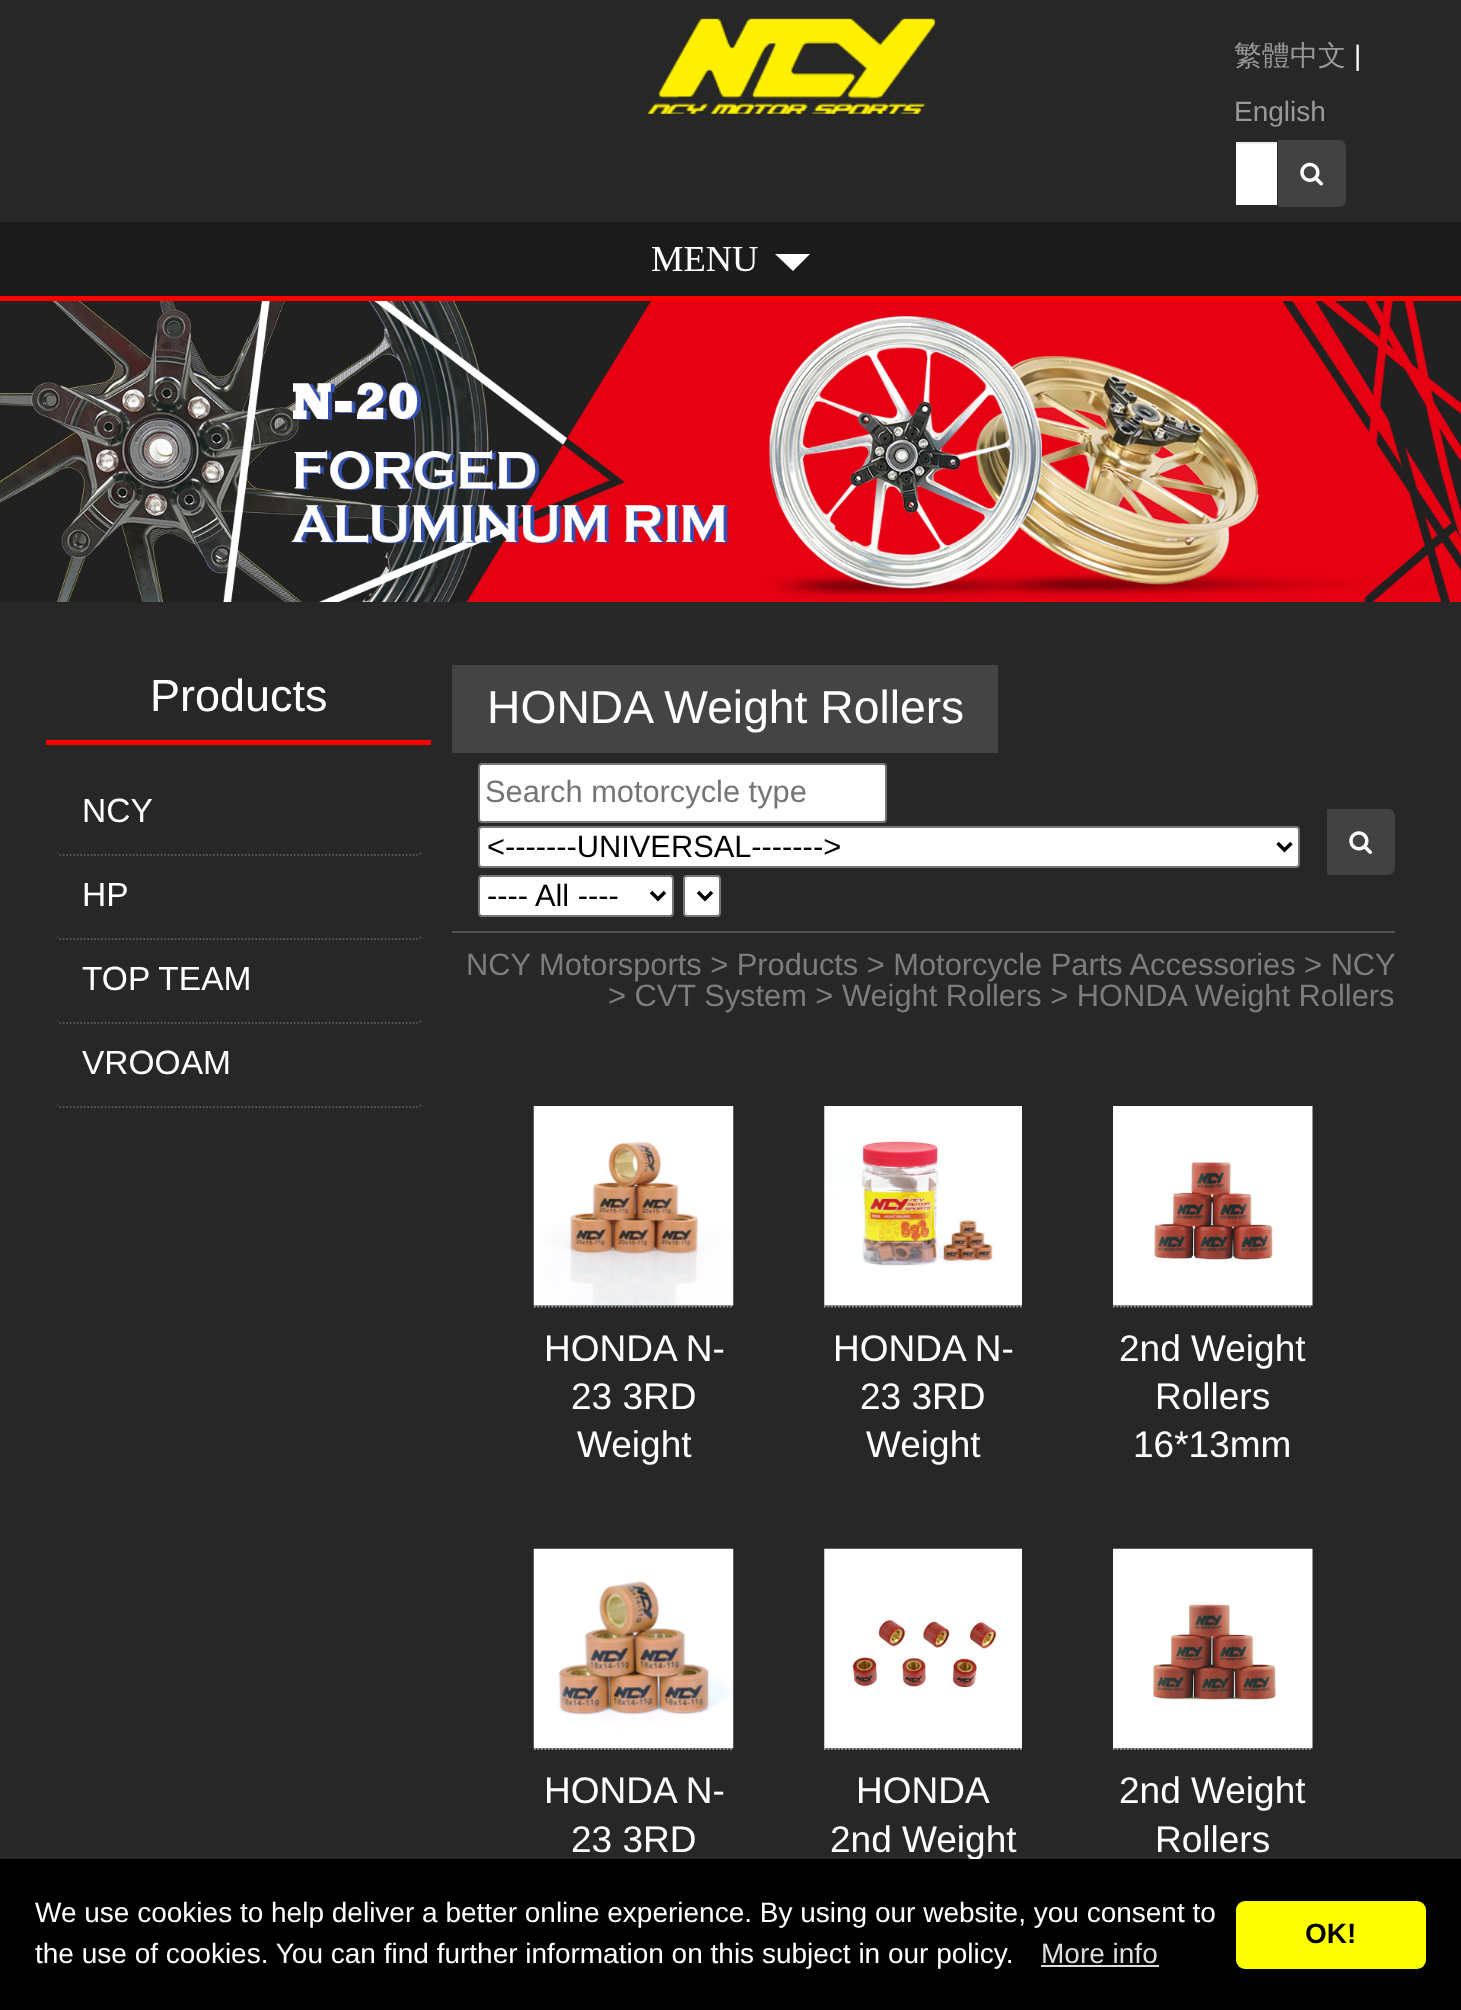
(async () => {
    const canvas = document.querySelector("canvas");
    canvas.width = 1461;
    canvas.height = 2010;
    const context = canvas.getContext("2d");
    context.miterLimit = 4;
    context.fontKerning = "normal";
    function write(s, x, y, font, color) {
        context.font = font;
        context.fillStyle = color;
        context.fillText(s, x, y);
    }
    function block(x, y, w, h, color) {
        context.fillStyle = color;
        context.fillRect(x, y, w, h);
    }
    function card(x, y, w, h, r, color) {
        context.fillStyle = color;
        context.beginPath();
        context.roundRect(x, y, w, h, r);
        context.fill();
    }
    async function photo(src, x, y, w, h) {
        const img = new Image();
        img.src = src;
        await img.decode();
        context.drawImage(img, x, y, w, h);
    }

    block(0, 0, 1461, 2010, "rgb(39, 39, 39)");
    await photo("media/1.png", 647, 18, 289, 96);
    write("繁體中文", 1234, 65, "500 28px WenQuanYi Zen Hei", "rgb(153, 153, 153)");
    write("|", 1354, 65, "28px Liberation Sans", "rgb(255, 255, 255)");
    write("English", 1234, 121, "28px Liberation Sans", "rgb(153, 153, 153)");
    block(1236, 144, 41, 61, "rgb(255, 255, 255)");
    block(1236, 142, 42, 2, "rgb(236, 236, 236)");
    context.strokeStyle = "rgb(40, 40, 40)";
    context.lineWidth = 2;
    context.strokeRect(1235, 141, 43, 65);
    context.fillStyle = "rgb(66, 66, 66)";
    context.beginPath();
    context.roundRect(1279, 141, 66, 65, [0, 6, 6, 0]);
    context.fill();
    context.strokeStyle = "rgb(66, 66, 66)";
    context.stroke();
    await photo("media/2.png", 1300, 162, 23, 24);
    block(0, 222, 1461, 74, "rgb(27, 27, 27)");
    block(0, 296, 1461, 5, "rgb(254, 0, 0)");
    write("MENU", 651, 271, "36.5px Liberation Serif", "rgb(255, 255, 255)");
    context.beginPath();
    context.moveTo(775, 254);
    context.lineTo(810, 254);
    context.lineTo(793, 271);
    context.closePath();
    context.fill();
    await photo("media/3.png", 0, 301, 1461, 301);
    block(46, 740, 385, 5, "rgb(254, 0, 0)");
    write("Products", 150, 711, "45px Liberation Sans", "rgb(255, 255, 255)");
    context.beginPath();
    context.moveTo(421, 853);
    context.bezierCurveTo(419.5, 854, 418, 855, 416.5, 855);
    context.lineTo(61, 855);
    context.bezierCurveTo(59.5, 855, 58, 854, 57, 853);
    context.strokeStyle = "rgb(83, 83, 83)";
    context.lineWidth = 1.8;
    context.setLineDash([1.75, 1.75]);
    context.stroke();
    write("NCY", 82, 822, "33.5px Liberation Sans", "rgb(255, 255, 255)");
    context.beginPath();
    context.moveTo(421, 937);
    context.bezierCurveTo(419.5, 938, 418, 939, 416.5, 939);
    context.lineTo(61, 939);
    context.bezierCurveTo(59.5, 939, 58, 938, 57, 937);
    context.stroke();
    write("HP", 82, 906, "33.5px Liberation Sans", "rgb(255, 255, 255)");
    context.beginPath();
    context.moveTo(421, 1021);
    context.bezierCurveTo(419.5, 1022, 418, 1023, 416.5, 1023);
    context.lineTo(61, 1023);
    context.bezierCurveTo(59.5, 1023, 58, 1022, 57, 1021);
    context.stroke();
    write("TOP TEAM", 82, 990, "33.5px Liberation Sans", "rgb(255, 255, 255)");
    context.beginPath();
    context.moveTo(421, 1105);
    context.bezierCurveTo(419.5, 1106, 418, 1107, 416.5, 1107);
    context.lineTo(61, 1107);
    context.bezierCurveTo(59.5, 1107, 58, 1106, 57, 1105);
    context.stroke();
    write("VROOAM", 82, 1074, "33.5px Liberation Sans", "rgb(255, 255, 255)");
    block(452, 931, 943, 2, "rgb(83, 83, 83)");
    block(452, 665, 546, 88, "rgb(68, 68, 68)");
    write("HONDA Weight Rollers", 487, 723, "46.25px Liberation Sans", "rgb(255, 255, 255)");
    context.beginPath();
    context.roundRect(479, 764, 407, 58, 3);
    context.fill();
    context.strokeStyle = "rgb(118, 118, 118)";
    context.lineWidth = 2;
    context.setLineDash([]);
    context.stroke();
    write("Search motorcycle type", 485, 802, "30.8px Liberation Sans", "rgb(117, 117, 117)");
    context.fillStyle = "rgb(255, 255, 255)";
    context.beginPath();
    context.roundRect(479, 827, 820, 40, 3);
    context.fill();
    context.stroke();
    context.beginPath();
    context.moveTo(1277.5, 843);
    context.lineTo(1284.5, 850);
    context.lineTo(1291.5, 843);
    context.strokeStyle = "rgb(0, 0, 0)";
    context.lineWidth = 3.5;
    context.stroke();
    write("<-------UNIVERSAL------->", 487, 857, "30.8px Liberation Sans", "rgb(0, 0, 0)");
    context.fillStyle = "rgb(255, 255, 255)";
    context.beginPath();
    context.roundRect(479, 876, 194, 40, 3);
    context.fill();
    context.strokeStyle = "rgb(118, 118, 118)";
    context.lineWidth = 2;
    context.stroke();
    context.beginPath();
    context.moveTo(651, 892);
    context.lineTo(658, 899);
    context.lineTo(665, 892);
    context.strokeStyle = "rgb(0, 0, 0)";
    context.lineWidth = 3.5;
    context.stroke();
    write("---- All ----", 487, 906, "30.8px Liberation Sans", "rgb(0, 0, 0)");
    context.fillStyle = "rgb(255, 255, 255)";
    context.beginPath();
    context.roundRect(684, 876, 36, 40, 3);
    context.fill();
    context.strokeStyle = "rgb(118, 118, 118)";
    context.lineWidth = 2;
    context.stroke();
    context.beginPath();
    context.moveTo(698, 892);
    context.lineTo(705, 899);
    context.lineTo(712, 892);
    context.strokeStyle = "rgb(0, 0, 0)";
    context.lineWidth = 3.5;
    context.stroke();
    context.fillStyle = "rgb(66, 66, 66)";
    context.beginPath();
    context.roundRect(1328, 810, 66, 64, [0, 6, 6, 0]);
    context.fill();
    context.strokeStyle = "rgb(66, 66, 66)";
    context.lineWidth = 2;
    context.stroke();
    await photo("media/4.png", 1349, 831, 23, 23);
    write("NCY Motorsports > Products > Motorcycle Parts Accessories > NCY", 466, 975, "30.8px Liberation Sans", "rgb(125, 125, 125)");
    write("> CVT System > Weight Rollers > HONDA Weight Rollers", 608, 1006, "30.8px Liberation Sans", "rgb(125, 125, 125)");
    await photo("media/5.png", 533, 1106, 201, 200);
    context.beginPath();
    context.moveTo(534, 1306.5);
    context.lineTo(733, 1306.5);
    context.strokeStyle = "rgb(153, 153, 153)";
    context.lineWidth = 1.8;
    context.setLineDash([1.75, 1.75]);
    context.stroke();
    write("HONDA N-", 544, 1361, "37px Liberation Sans", "rgb(255, 255, 255)");
    write("23 3RD", 571, 1409, "37px Liberation Sans", "rgb(255, 255, 255)");
    write("Weight", 577, 1457, "37px Liberation Sans", "rgb(255, 255, 255)");
    await photo("media/6.png", 824, 1106, 198, 200);
    context.beginPath();
    context.moveTo(824, 1306.5);
    context.lineTo(1022, 1306.5);
    context.stroke();
    write("HONDA N-", 833, 1361, "37px Liberation Sans", "rgb(255, 255, 255)");
    write("23 3RD", 860, 1409, "37px Liberation Sans", "rgb(255, 255, 255)");
    write("Weight", 866, 1457, "37px Liberation Sans", "rgb(255, 255, 255)");
    await photo("media/7.png", 1113, 1106, 200, 200);
    context.beginPath();
    context.moveTo(1113, 1306.5);
    context.lineTo(1312.5, 1306.5);
    context.stroke();
    write("2nd Weight", 1119, 1361, "37px Liberation Sans", "rgb(255, 255, 255)");
    write("Rollers", 1155, 1409, "37px Liberation Sans", "rgb(255, 255, 255)");
    write("16*13mm", 1133, 1457, "37px Liberation Sans", "rgb(255, 255, 255)");
    await photo("media/8.png", 533, 1548, 201, 201);
    context.beginPath();
    context.moveTo(534, 1749);
    context.lineTo(733, 1749);
    context.stroke();
    write("HONDA N-", 544, 1803, "37px Liberation Sans", "rgb(255, 255, 255)");
    write("23 3RD", 571, 1852, "37px Liberation Sans", "rgb(255, 255, 255)");
    await photo("media/9.png", 824, 1548, 198, 201);
    context.beginPath();
    context.moveTo(824, 1749);
    context.lineTo(1022, 1749);
    context.stroke();
    write("HONDA", 856, 1803, "37px Liberation Sans", "rgb(255, 255, 255)");
    write("2nd Weight", 830, 1852, "37px Liberation Sans", "rgb(255, 255, 255)");
    await photo("media/10.png", 1113, 1548, 200, 201);
    context.beginPath();
    context.moveTo(1113, 1749);
    context.lineTo(1312.5, 1749);
    context.stroke();
    write("2nd Weight", 1119, 1803, "37px Liberation Sans", "rgb(255, 255, 255)");
    write("Rollers", 1155, 1852, "37px Liberation Sans", "rgb(255, 255, 255)");
    block(0, 1859, 1461, 151, "rgb(0, 0, 0)");
    write("We use cookies to help deliver a better online experience. By using our website, you consent to", 35, 1922, "28px Liberation Sans", "rgb(255, 255, 255)");
    write("the use of cookies. You can find further information on this subject in our policy.", 35, 1963, "28px Liberation Sans", "rgb(255, 255, 255)");
    write("More info", 1041, 1963, "28px Liberation Sans", "rgb(221, 221, 221)");
    block(1041, 1965, 118, 2, "rgb(221, 221, 221)");
    card(1236, 1901, 190, 68, 9, "rgb(255, 255, 0)");
    write("OK!", 1305, 1943, "bold 28px Liberation Sans", "rgb(0, 0, 0)");
})();
